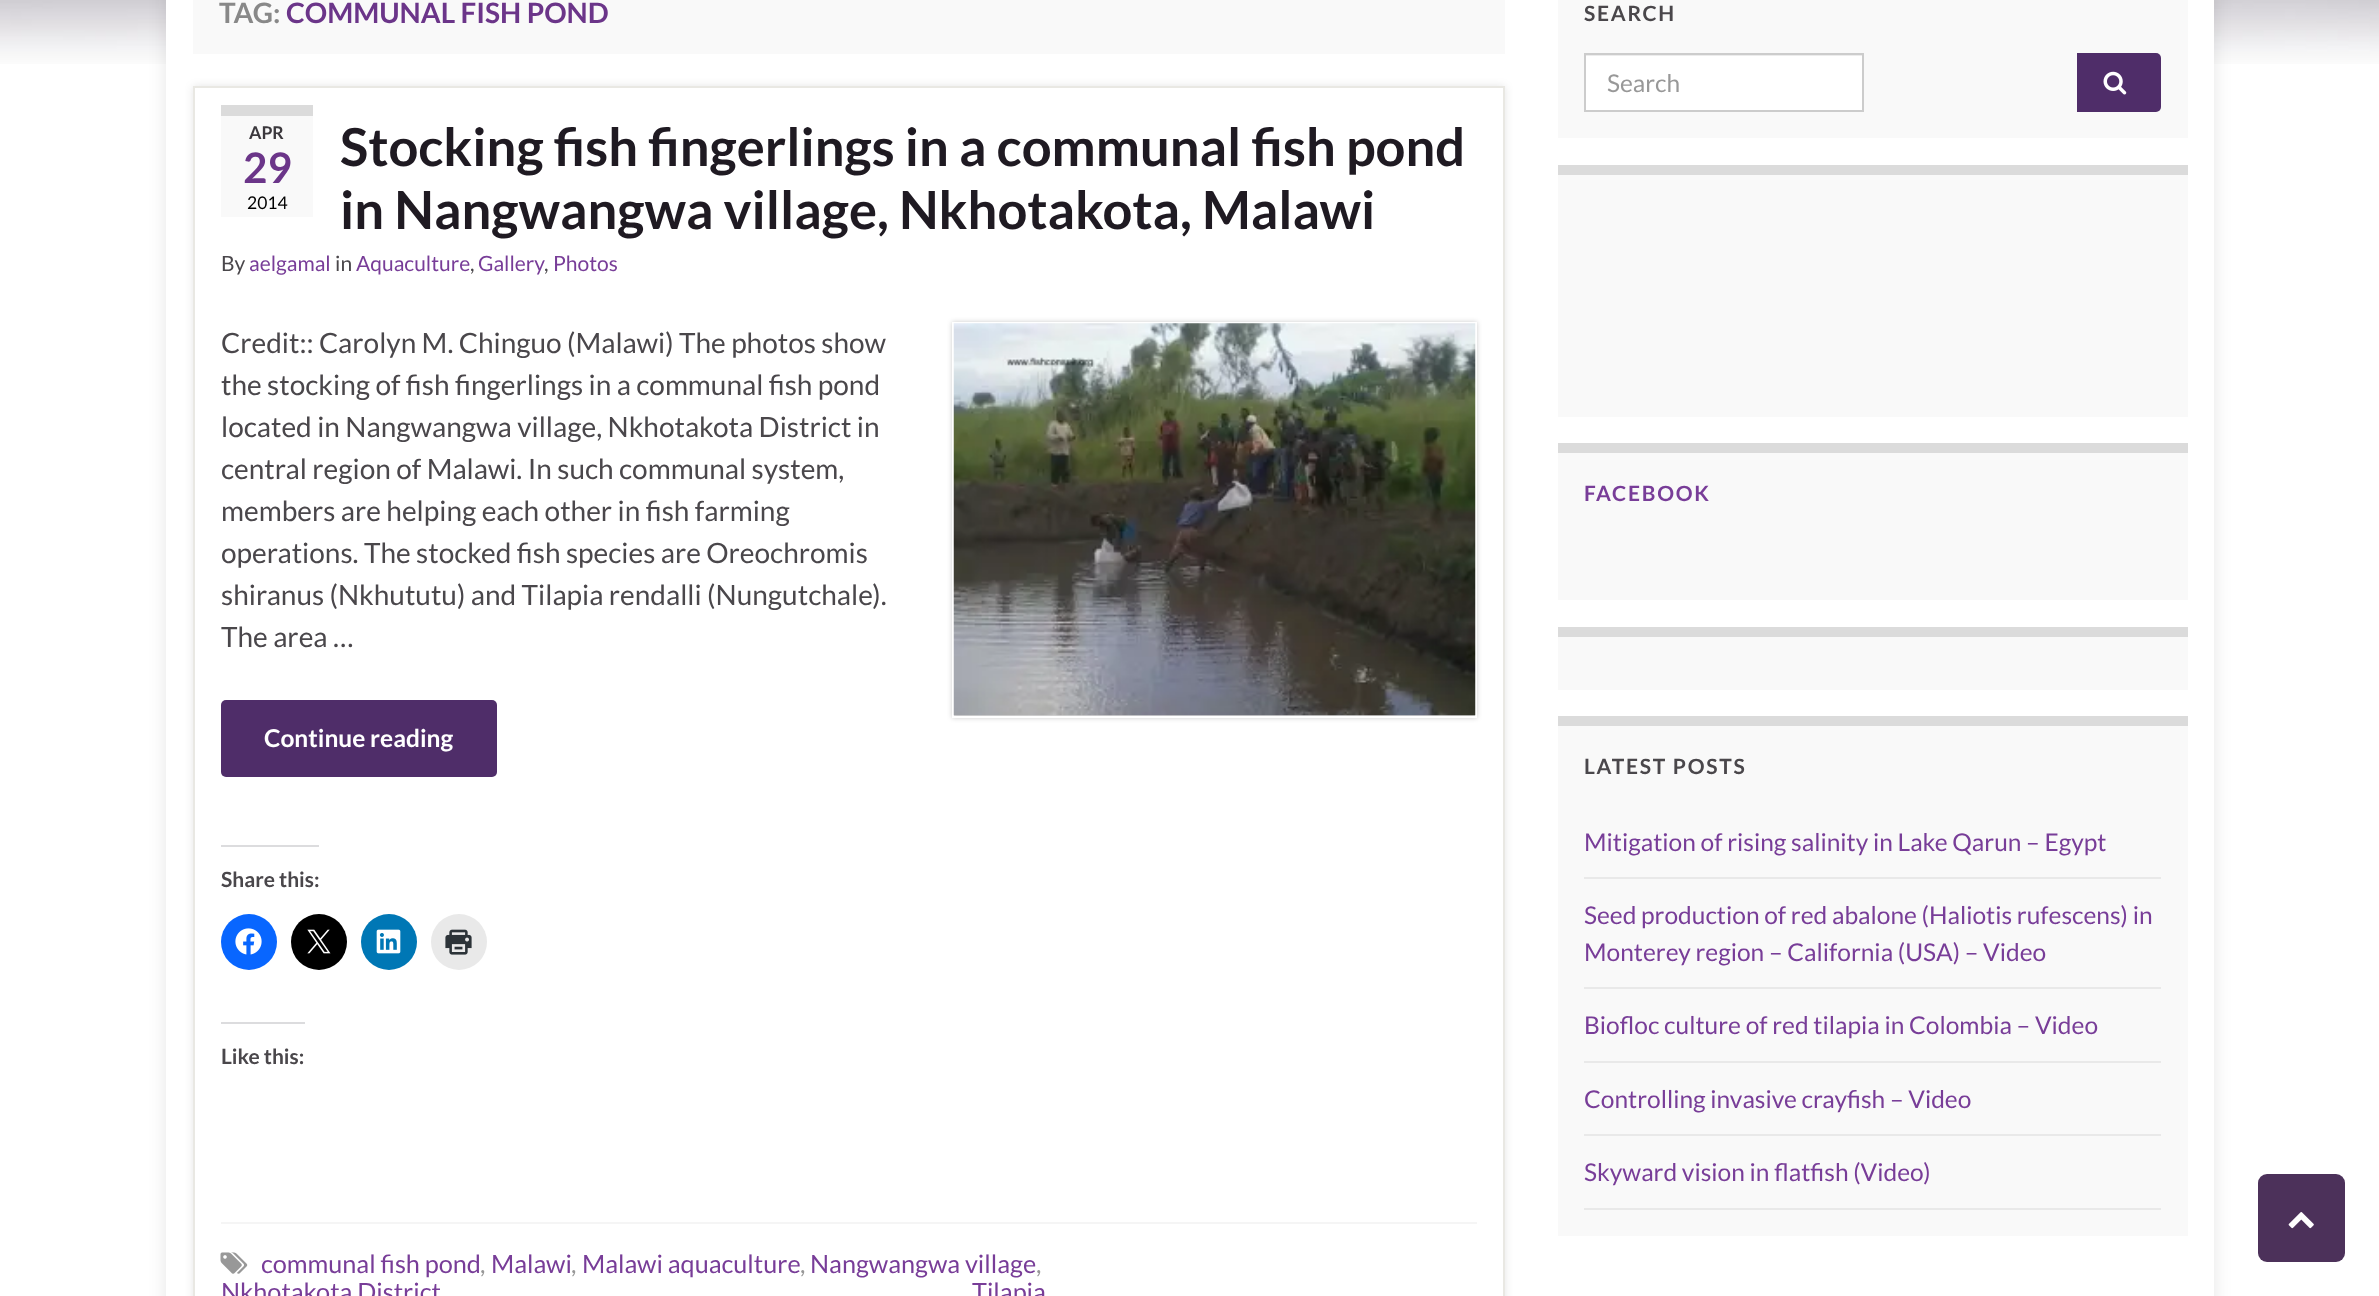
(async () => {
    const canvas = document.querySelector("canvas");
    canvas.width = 2379;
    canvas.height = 1296;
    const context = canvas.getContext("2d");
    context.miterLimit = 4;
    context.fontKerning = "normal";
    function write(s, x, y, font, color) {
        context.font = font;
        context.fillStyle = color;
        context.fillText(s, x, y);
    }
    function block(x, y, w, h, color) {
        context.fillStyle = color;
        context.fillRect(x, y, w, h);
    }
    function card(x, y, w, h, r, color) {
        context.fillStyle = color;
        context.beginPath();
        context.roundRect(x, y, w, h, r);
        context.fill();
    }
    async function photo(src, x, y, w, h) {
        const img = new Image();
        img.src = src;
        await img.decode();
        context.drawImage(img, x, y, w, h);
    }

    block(0, 0, 2379, 1296, "rgb(255, 255, 255)");
    await photo("media/1.png", 0, 0, 2379, 64);
    context.fillStyle = "rgba(0, 0, 0, 0.1)";
    context.filter = "blur(9px)";
    context.beginPath();
    context.rect(166, -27, 2048, 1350);
    context.fill();
    context.filter = "none";
    block(166, 0, 2048, 1296, "rgb(255, 255, 255)");
    block(193, 0, 1312, 54, "rgb(249, 249, 249)");
    write("TAG:", 219, 23, "bold 28px Lato", "rgb(136, 136, 136)");
    write("COMMUNAL FISH POND", 286, 23, "bold 28px Lato", "rgb(107, 53, 137)");
    context.save();
    context.beginPath();
    context.moveTo(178, 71);
    context.lineTo(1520, 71);
    context.lineTo(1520, 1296);
    context.lineTo(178, 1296);
    context.closePath();
    context.moveTo(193, 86);
    context.lineTo(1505, 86);
    context.lineTo(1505, 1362);
    context.lineTo(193, 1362);
    context.closePath();
    context.clip("evenodd");
    context.fillStyle = "rgba(0, 0, 0, 0.1)";
    context.filter = "blur(4.5px)";
    context.beginPath();
    context.rect(193, 86, 1312, 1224);
    context.fill();
    context.filter = "none";
    context.restore();
    context.strokeStyle = "rgb(233, 232, 227)";
    context.lineWidth = 2;
    context.strokeRect(194, 87, 1310, 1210);
    block(221, 116, 92, 101, "rgb(249, 249, 249)");
    block(221, 105, 92, 11, "rgb(219, 219, 219)");
    write("APR", 249, 139, "bold 17.5px Lato", "rgb(59, 56, 61)");
    write("29", 243, 183, "bold 42px Lato", "rgb(107, 53, 137)");
    write("2014", 247, 209, "17.5px Lato", "rgb(0, 0, 0)");
    write("Stocking fish fingerlings in a communal fish pond", 340, 166, "bold 52.5px Lato", "rgb(31, 26, 34)");
    write("in Nangwangwa village, Nkhotakota, Malawi", 340, 229, "bold 52.5px Lato", "rgb(31, 26, 34)");
    write("By", 221, 271, "21px Lato", "rgb(74, 71, 75)");
    write("aelgamal", 249, 271, "21px Lato", "rgb(120, 61, 152)");
    write("in", 335, 271, "21px Lato", "rgb(74, 71, 75)");
    write("Aquaculture", 356, 271, "21px Lato", "rgb(120, 61, 152)");
    write(",", 470, 271, "21px Lato", "rgb(74, 71, 75)");
    write("Gallery", 478, 271, "21px Lato", "rgb(120, 61, 152)");
    write(",", 544, 271, "21px Lato", "rgb(74, 71, 75)");
    write("Photos", 553, 271, "21px Lato", "rgb(120, 61, 152)");
    write("Credit:: Carolyn M. Chinguo (Malawi) The photos show", 221, 353, "28px Lato", "rgb(74, 71, 75)");
    write("the stocking of fish fingerlings in a communal fish pond", 221, 395, "28px Lato", "rgb(74, 71, 75)");
    write("located in Nangwangwa village, Nkhotakota District in", 221, 437, "28px Lato", "rgb(74, 71, 75)");
    write("central region of Malawi. In such communal system,", 221, 479, "28px Lato", "rgb(74, 71, 75)");
    write("members are helping each other in fish farming", 221, 521, "28px Lato", "rgb(74, 71, 75)");
    write("operations. The stocked fish species are Oreochromis", 221, 563, "28px Lato", "rgb(74, 71, 75)");
    write("shiranus (Nkhututu) and Tilapia rendalli (Nungutchale).", 221, 605, "28px Lato", "rgb(74, 71, 75)");
    write("The area …", 221, 647, "28px Lato", "rgb(74, 71, 75)");
    context.fillStyle = "rgba(0, 0, 0, 0.2)";
    context.filter = "blur(2.5px)";
    context.beginPath();
    context.rect(952, 322, 525, 396);
    context.fill();
    context.filter = "none";
    context.strokeStyle = "rgb(255, 255, 255)";
    context.strokeRect(953, 323, 523, 394);
    await photo("media/2.png", 953, 323, 523, 393);
    card(221, 700, 276, 77, 5, "rgb(79, 45, 105)");
    write("Continue reading", 264, 747, "bold 24.5px Lato", "rgb(255, 255, 255)");
    block(221, 845, 98, 2, "rgb(220, 220, 222)");
    write("Share this:", 221, 887, "bold 21px Lato", "rgb(74, 71, 75)");
    context.fillStyle = "rgb(8, 102, 255)";
    context.beginPath();
    context.arc(249, 942, 28, 0, Math.PI * 2);
    context.fill();
    await photo("media/3.png", 235, 928, 27, 27);
    context.fillStyle = "rgb(0, 0, 0)";
    context.beginPath();
    context.arc(319, 942, 28, 0, Math.PI * 2);
    context.fill();
    await photo("media/4.png", 307, 929, 24, 25);
    context.fillStyle = "rgb(0, 119, 181)";
    context.beginPath();
    context.arc(389, 942, 28, 0, Math.PI * 2);
    context.fill();
    await photo("media/5.png", 376, 929, 25, 25);
    context.fillStyle = "rgb(233, 233, 233)";
    context.beginPath();
    context.arc(459, 942, 28, 0, Math.PI * 2);
    context.fill();
    await photo("media/6.png", 445, 929, 27, 26);
    block(221, 1022, 84, 2, "rgb(220, 220, 222)");
    write("Like this:", 221, 1064, "bold 21px Lato", "rgb(74, 71, 75)");
    block(221, 1222, 1256, 2, "rgb(245, 245, 245)");
    await photo("media/7.png", 220, 1252, 28, 22);
    write("communal fish pond", 261, 1273, "25.25px Lato", "rgb(120, 61, 152)");
    write(",", 480, 1273, "25.25px Lato", "rgb(152, 152, 152)");
    write("Malawi", 491, 1273, "25.25px Lato", "rgb(120, 61, 152)");
    write(",", 571, 1273, "25.25px Lato", "rgb(152, 152, 152)");
    write("Malawi aquaculture", 582, 1273, "25.25px Lato", "rgb(120, 61, 152)");
    write(",", 800, 1273, "25.25px Lato", "rgb(152, 152, 152)");
    write("Nangwangwa village", 810, 1273, "25.25px Lato", "rgb(120, 61, 152)");
    write(",", 1036, 1273, "25.25px Lato", "rgb(152, 152, 152)");
    write("Nkhotakota District", 221, 1301, "25.25px Lato", "rgb(120, 61, 152)");
    write("Tilapia", 972, 1301, "25.25px Lato", "rgb(120, 61, 152)");
    block(1558, 0, 630, 138, "rgb(249, 249, 249)");
    context.letterSpacing = "1.75px";
    write("SEARCH", 1584, 21, "bold 21px Lato", "rgb(74, 71, 75)");
    block(1586, 56, 276, 54, "rgb(255, 255, 255)");
    block(1586, 55, 276, 1, "rgb(236, 236, 236)");
    context.strokeStyle = "rgb(204, 204, 204)";
    context.strokeRect(1585, 54, 278, 57);
    context.letterSpacing = "0px";
    write("Search", 1607, 92, "24.5px Lato", "rgb(152, 152, 152)");
    context.fillStyle = "rgb(79, 45, 105)";
    context.beginPath();
    context.roundRect(2077, 53, 84, 59, [0, 5, 5, 0]);
    context.fill();
    await photo("media/8.png", 2103, 71, 24, 24);
    block(1558, 175, 630, 242, "rgb(249, 249, 249)");
    block(1558, 165, 630, 10, "rgb(219, 219, 219)");
    block(1558, 453, 630, 147, "rgb(249, 249, 249)");
    block(1558, 443, 630, 10, "rgb(219, 219, 219)");
    context.letterSpacing = "1.75px";
    write("FACEBOOK", 1584, 501, "bold 21px Lato", "rgb(120, 61, 152)");
    block(1558, 637, 630, 53, "rgb(249, 249, 249)");
    block(1558, 627, 630, 10, "rgb(219, 219, 219)");
    block(1558, 726, 630, 510, "rgb(249, 249, 249)");
    block(1558, 716, 630, 10, "rgb(219, 219, 219)");
    write("LATEST POSTS", 1584, 774, "bold 21px Lato", "rgb(74, 71, 75)");
    block(1584, 877, 577, 2, "rgb(233, 233, 233)");
    context.letterSpacing = "0px";
    write("Mitigation of rising salinity in Lake Qarun – Egypt", 1584, 851, "24.5px Lato", "rgb(120, 61, 152)");
    block(1584, 987, 577, 2, "rgb(233, 233, 233)");
    write("Seed production of red abalone (Haliotis rufescens) in", 1584, 924, "24.5px Lato", "rgb(120, 61, 152)");
    write("Monterey region – California (USA) – Video", 1584, 961, "24.5px Lato", "rgb(120, 61, 152)");
    block(1584, 1061, 577, 2, "rgb(233, 233, 233)");
    write("Biofloc culture of red tilapia in Colombia – Video", 1584, 1034, "24.5px Lato", "rgb(120, 61, 152)");
    block(1584, 1134, 577, 2, "rgb(233, 233, 233)");
    write("Controlling invasive crayfish – Video", 1584, 1108, "24.5px Lato", "rgb(120, 61, 152)");
    block(1584, 1208, 577, 2, "rgb(233, 233, 233)");
    write("Skyward vision in flatfish (Video)", 1584, 1181, "24.5px Lato", "rgb(120, 61, 152)");
    card(2258, 1174, 87, 88, 9, "rgb(76, 49, 90)");
    await photo("media/9.png", 2288, 1212, 26, 17);
})();
